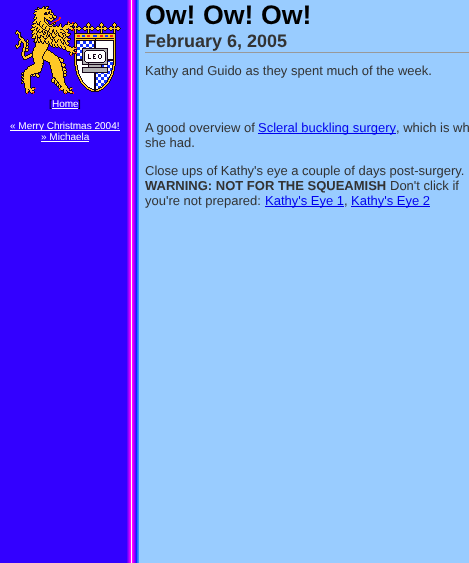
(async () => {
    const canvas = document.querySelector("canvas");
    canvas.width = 469;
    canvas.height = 563;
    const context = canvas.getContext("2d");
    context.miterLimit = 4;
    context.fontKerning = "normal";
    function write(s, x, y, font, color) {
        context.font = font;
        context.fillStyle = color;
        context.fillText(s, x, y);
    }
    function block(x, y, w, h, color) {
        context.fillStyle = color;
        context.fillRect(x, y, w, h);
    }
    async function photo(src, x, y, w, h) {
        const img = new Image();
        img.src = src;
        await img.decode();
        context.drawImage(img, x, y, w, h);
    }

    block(0, 0, 469, 563, "rgb(255, 255, 255)");
    await photo("media/1.png", 0, 0, 469, 563);
    await photo("media/2.png", 15, 6, 106, 88);
    write("[", 49, 107, "10px Liberation Sans", "rgb(0, 0, 0)");
    write("Home", 52, 107, "10px Liberation Sans", "rgb(255, 255, 255)");
    block(52, 108, 26, 1, "rgb(255, 255, 255)");
    write("]", 78, 107, "10px Liberation Sans", "rgb(0, 0, 0)");
    block(10, 130, 110, 1, "rgb(255, 255, 255)");
    write("« Merry Christmas 2004!", 10, 129, "10px Liberation Sans", "rgb(255, 255, 255)");
    write("» Michaela", 41, 140, "10px Liberation Sans", "rgb(255, 255, 255)");
    block(41, 141, 48, 1, "rgb(255, 255, 255)");
    write("Ow! Ow! Ow!", 145, 24, "bold 26.75px Liberation Sans", "rgb(0, 0, 0)");
    block(145, 52, 324, 1, "rgb(153, 153, 153)");
    write("February 6, 2005", 145, 47, "bold 18px Liberation Sans", "rgb(51, 51, 51)");
    write("Kathy and Guido as they spent much of the week.", 145, 75, "13px Liberation Sans", "rgb(51, 51, 51)");
    write("A good overview of", 145, 132, "13px Liberation Sans", "rgb(51, 51, 51)");
    block(258, 133, 138, 1, "rgb(0, 0, 238)");
    write("Scleral buckling surgery", 258, 132, "13px Liberation Sans", "rgb(0, 0, 238)");
    write(", which is wh", 396, 132, "13px Liberation Sans", "rgb(51, 51, 51)");
    write("she had.", 145, 147, "13px Liberation Sans", "rgb(51, 51, 51)");
    write("Close ups of Kathy's eye a couple of days post-surgery.", 145, 175, "13px Liberation Sans", "rgb(51, 51, 51)");
    write("WARNING: NOT FOR THE SQUEAMISH", 145, 190, "bold 13px Liberation Sans", "rgb(51, 51, 51)");
    write("Don't click if", 390, 190, "13px Liberation Sans", "rgb(51, 51, 51)");
    write("you're not prepared:", 145, 205, "13px Liberation Sans", "rgb(51, 51, 51)");
    block(265, 206, 79, 1, "rgb(0, 0, 238)");
    write("Kathy's Eye 1", 265, 205, "13px Liberation Sans", "rgb(0, 0, 238)");
    write(",", 344, 205, "13px Liberation Sans", "rgb(51, 51, 51)");
    block(351, 206, 79, 1, "rgb(0, 0, 238)");
    write("Kathy's Eye 2", 351, 205, "13px Liberation Sans", "rgb(0, 0, 238)");
})();
